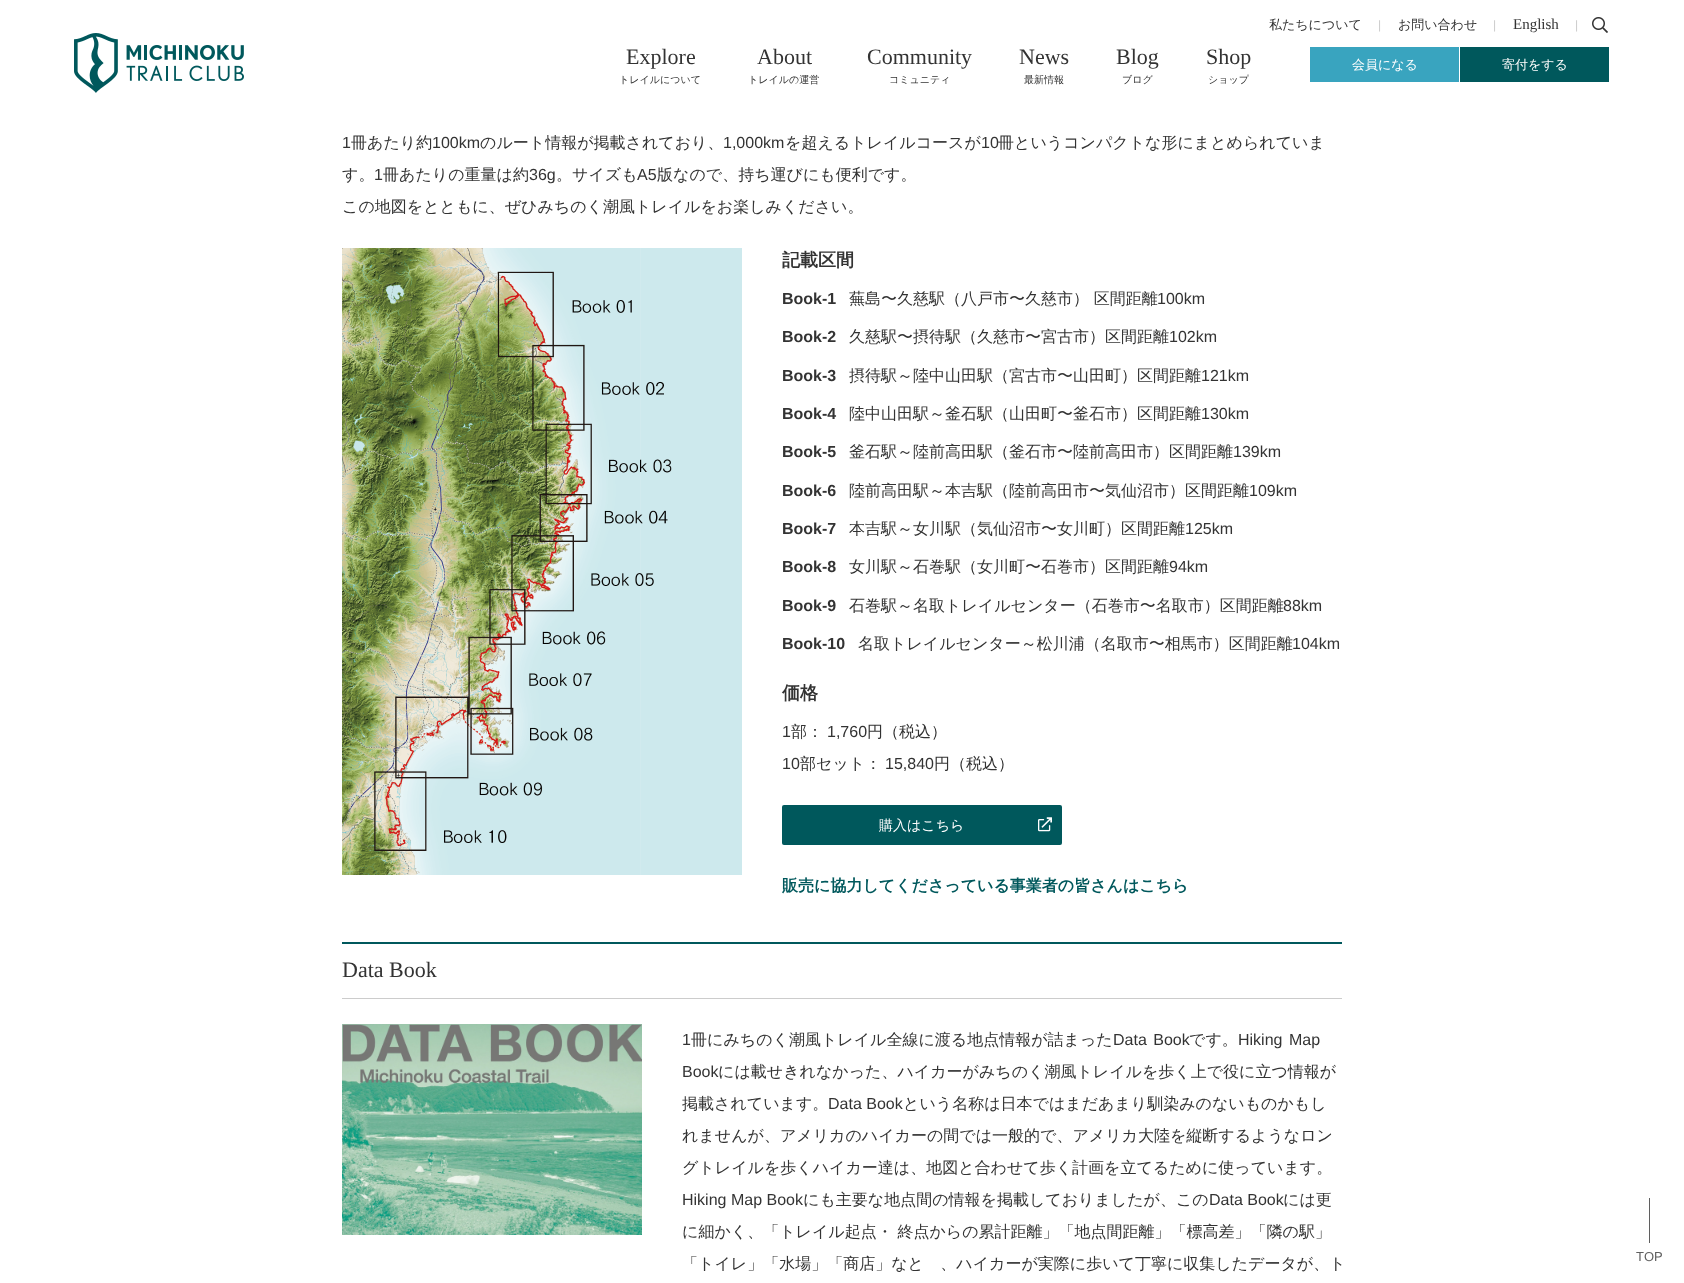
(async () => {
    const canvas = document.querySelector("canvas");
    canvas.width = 1684;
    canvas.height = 1283;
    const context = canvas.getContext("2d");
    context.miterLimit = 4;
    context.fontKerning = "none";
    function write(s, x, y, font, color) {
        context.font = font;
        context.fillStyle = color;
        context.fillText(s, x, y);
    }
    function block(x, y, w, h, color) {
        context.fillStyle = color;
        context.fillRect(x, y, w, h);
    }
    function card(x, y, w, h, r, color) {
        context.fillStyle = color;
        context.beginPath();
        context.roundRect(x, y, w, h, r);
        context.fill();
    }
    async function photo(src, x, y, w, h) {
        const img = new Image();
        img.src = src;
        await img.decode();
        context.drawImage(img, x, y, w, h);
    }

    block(0, 0, 1684, 1283, "rgb(255, 255, 255)");
    await photo("media/1.png", 74, 33, 170, 60);
    write("私たちについて", 1269, 29, "500 13px WenQuanYi Zen Hei", "rgb(51, 51, 51)");
    write("|", 1378, 29, "12px Liberation Sans", "rgb(204, 204, 204)");
    write("お問い合わせ", 1398, 29, "500 13px WenQuanYi Zen Hei", "rgb(51, 51, 51)");
    write("|", 1493, 29, "12px Liberation Sans", "rgb(204, 204, 204)");
    write("English", 1513, 29, "15px Liberation Serif", "rgb(51, 51, 51)");
    write("|", 1575, 29, "12px Liberation Sans", "rgb(204, 204, 204)");
    write("Explore", 626, 64, "22px Liberation Serif", "rgb(51, 51, 51)");
    write("トレイルについて", 619, 83, "500 10px WenQuanYi Zen Hei", "rgb(51, 51, 51)");
    write("About", 757, 64, "22px Liberation Serif", "rgb(51, 51, 51)");
    write("トレイルの運営", 748, 83, "500 10px WenQuanYi Zen Hei", "rgb(51, 51, 51)");
    write("Community", 867, 64, "22px Liberation Serif", "rgb(51, 51, 51)");
    write("コミュニティ", 889, 83, "500 10px WenQuanYi Zen Hei", "rgb(51, 51, 51)");
    write("News", 1019, 64, "22px Liberation Serif", "rgb(51, 51, 51)");
    write("最新情報", 1024, 83, "500 10px WenQuanYi Zen Hei", "rgb(51, 51, 51)");
    write("Blog", 1116, 64, "22px Liberation Serif", "rgb(51, 51, 51)");
    write("ブログ", 1122, 83, "500 10px WenQuanYi Zen Hei", "rgb(51, 51, 51)");
    write("Shop", 1206, 64, "22px Liberation Serif", "rgb(51, 51, 51)");
    write("ショップ", 1208, 83, "500 10px WenQuanYi Zen Hei", "rgb(51, 51, 51)");
    block(1310, 47, 149, 35, "rgb(57, 164, 191)");
    write("会員になる", 1352, 69, "500 13px WenQuanYi Zen Hei", "rgb(255, 255, 255)");
    block(1460, 47, 149, 35, "rgb(0, 88, 92)");
    write("寄付をする", 1502, 69, "500 13px WenQuanYi Zen Hei", "rgb(255, 255, 255)");
    await photo("media/2.png", 1592, 17, 16, 16);
    write("1", 342, 148, "16px Liberation Sans", "rgb(51, 51, 51)");
    write("冊あたり約", 351, 148, "500 16px WenQuanYi Zen Hei", "rgb(51, 51, 51)");
    write("100km", 432, 148, "16px Liberation Sans", "rgb(51, 51, 51)");
    write("のルート情報が掲載されており、", 480, 148, "500 16px WenQuanYi Zen Hei", "rgb(51, 51, 51)");
    write("1,000km", 723, 148, "16px Liberation Sans", "rgb(51, 51, 51)");
    write("を超えるトレイルコースが", 785, 148, "500 16px WenQuanYi Zen Hei", "rgb(51, 51, 51)");
    write("10", 981, 148, "16px Liberation Sans", "rgb(51, 51, 51)");
    write("冊というコンパクトな形にまとめられていま", 998, 148, "500 16px WenQuanYi Zen Hei", "rgb(51, 51, 51)");
    write("す。", 342, 180, "500 16px WenQuanYi Zen Hei", "rgb(51, 51, 51)");
    write("1", 374, 180, "16px Liberation Sans", "rgb(51, 51, 51)");
    write("冊あたりの重量は約", 383, 180, "500 16px WenQuanYi Zen Hei", "rgb(51, 51, 51)");
    write("36g", 529, 180, "16px Liberation Sans", "rgb(51, 51, 51)");
    write("。サイズも", 556, 180, "500 16px WenQuanYi Zen Hei", "rgb(51, 51, 51)");
    write("A5", 637, 180, "16px Liberation Sans", "rgb(51, 51, 51)");
    write("版なので、持ち運びにも便利です。", 657, 180, "500 16px WenQuanYi Zen Hei", "rgb(51, 51, 51)");
    write("この地図をとともに、ぜひみちのく潮風トレイルをお楽しみください。", 342, 212, "500 16px WenQuanYi Zen Hei", "rgb(51, 51, 51)");
    await photo("media/3.png", 342, 248, 400, 627);
    write("記載区間", 782, 266, "bold 18px WenQuanYi Zen Hei", "rgb(51, 51, 51)");
    write("Book-1", 782, 304, "bold 16px Liberation Sans", "rgb(51, 51, 51)");
    write("蕪島〜久慈駅（八戸市〜久慈市） 区間距離", 849, 304, "500 16px WenQuanYi Zen Hei", "rgb(51, 51, 51)");
    write("100km", 1157, 304, "16px Liberation Sans", "rgb(51, 51, 51)");
    write("Book-2", 782, 342, "bold 16px Liberation Sans", "rgb(51, 51, 51)");
    write("久慈駅〜摂待駅（久慈市〜宮古市）区間距離", 849, 342, "500 16px WenQuanYi Zen Hei", "rgb(51, 51, 51)");
    write("102km", 1169, 342, "16px Liberation Sans", "rgb(51, 51, 51)");
    write("Book-3", 782, 381, "bold 16px Liberation Sans", "rgb(51, 51, 51)");
    write("摂待駅～陸中山田駅（宮古市〜山田町）区間距離", 849, 381, "500 16px WenQuanYi Zen Hei", "rgb(51, 51, 51)");
    write("121km", 1201, 381, "16px Liberation Sans", "rgb(51, 51, 51)");
    write("Book-4", 782, 419, "bold 16px Liberation Sans", "rgb(51, 51, 51)");
    write("陸中山田駅～釜石駅（山田町〜釜石市）区間距離", 849, 419, "500 16px WenQuanYi Zen Hei", "rgb(51, 51, 51)");
    write("130km", 1201, 419, "16px Liberation Sans", "rgb(51, 51, 51)");
    write("Book-5", 782, 457, "bold 16px Liberation Sans", "rgb(51, 51, 51)");
    write("釜石駅～陸前高田駅（釜石市〜陸前高田市）区間距離", 849, 457, "500 16px WenQuanYi Zen Hei", "rgb(51, 51, 51)");
    write("139km", 1233, 457, "16px Liberation Sans", "rgb(51, 51, 51)");
    write("Book-6", 782, 496, "bold 16px Liberation Sans", "rgb(51, 51, 51)");
    write("陸前高田駅～本吉駅（陸前高田市〜気仙沼市）区間距離", 849, 496, "500 16px WenQuanYi Zen Hei", "rgb(51, 51, 51)");
    write("109km", 1249, 496, "16px Liberation Sans", "rgb(51, 51, 51)");
    write("Book-7", 782, 534, "bold 16px Liberation Sans", "rgb(51, 51, 51)");
    write("本吉駅～女川駅（気仙沼市〜女川町）区間距離", 849, 534, "500 16px WenQuanYi Zen Hei", "rgb(51, 51, 51)");
    write("125km", 1185, 534, "16px Liberation Sans", "rgb(51, 51, 51)");
    write("Book-8", 782, 572, "bold 16px Liberation Sans", "rgb(51, 51, 51)");
    write("女川駅～石巻駅（女川町〜石巻市）区間距離", 849, 572, "500 16px WenQuanYi Zen Hei", "rgb(51, 51, 51)");
    write("94km", 1169, 572, "16px Liberation Sans", "rgb(51, 51, 51)");
    write("Book-9", 782, 611, "bold 16px Liberation Sans", "rgb(51, 51, 51)");
    write("石巻駅～名取トレイルセンター（石巻市〜名取市）区間距離", 849, 611, "500 16px WenQuanYi Zen Hei", "rgb(51, 51, 51)");
    write("88km", 1283, 611, "16px Liberation Sans", "rgb(51, 51, 51)");
    write("Book-10", 782, 649, "bold 16px Liberation Sans", "rgb(51, 51, 51)");
    write("名取トレイルセンター～松川浦（名取市〜相馬市）区間距離", 858, 649, "500 16px WenQuanYi Zen Hei", "rgb(51, 51, 51)");
    write("104km", 1292, 649, "16px Liberation Sans", "rgb(51, 51, 51)");
    write("価格", 782, 699, "bold 18px WenQuanYi Zen Hei", "rgb(51, 51, 51)");
    write("1", 782, 737, "16px Liberation Sans", "rgb(51, 51, 51)");
    write("部：", 791, 737, "500 16px WenQuanYi Zen Hei", "rgb(51, 51, 51)");
    write("1,760", 827, 737, "16px Liberation Sans", "rgb(51, 51, 51)");
    write("円（税込）", 867, 737, "500 16px WenQuanYi Zen Hei", "rgb(51, 51, 51)");
    write("10", 782, 769, "16px Liberation Sans", "rgb(51, 51, 51)");
    write("部セット：", 800, 769, "500 16px WenQuanYi Zen Hei", "rgb(51, 51, 51)");
    write("15,840", 885, 769, "16px Liberation Sans", "rgb(51, 51, 51)");
    write("円（税込）", 934, 769, "500 16px WenQuanYi Zen Hei", "rgb(51, 51, 51)");
    card(782, 805, 280, 40, 2, "rgb(0, 88, 92)");
    write("購入はこちら", 879, 830, "500 14px WenQuanYi Zen Hei", "rgb(255, 255, 255)");
    await photo("media/4.png", 1038, 817, 14, 15);
    write("販売に協力してくださっている事業者の皆さんはこちら", 782, 891, "bold 16px WenQuanYi Zen Hei", "rgb(0, 88, 92)");
    block(342, 942, 1000, 2, "rgb(0, 88, 92)");
    block(342, 998, 1000, 1, "rgb(204, 204, 204)");
    write("Data Book", 342, 977, "22px Liberation Serif", "rgb(51, 51, 51)");
    await photo("media/5.png", 342, 1024, 300, 211);
    write("1", 682, 1045, "16px Liberation Sans", "rgb(51, 51, 51)");
    write("冊にみちのく潮風トレイル全線に渡る地点情報が詰まった", 691, 1045, "500 16px WenQuanYi Zen Hei", "rgb(51, 51, 51)");
    context.wordSpacing = "2px";
    write("Data Book", 1113, 1045, "16px Liberation Sans", "rgb(51, 51, 51)");
    context.wordSpacing = "0px";
    write("です。", 1189, 1045, "500 16px WenQuanYi Zen Hei", "rgb(51, 51, 51)");
    context.wordSpacing = "2px";
    write("Hiking Map", 1238, 1045, "16px Liberation Sans", "rgb(51, 51, 51)");
    context.wordSpacing = "0px";
    write("Book", 682, 1077, "16px Liberation Sans", "rgb(51, 51, 51)");
    write("には載せきれなかった、ハイカーがみちのく潮風トレイルを歩く上で役に立つ情報が", 718, 1077, "500 16px WenQuanYi Zen Hei", "rgb(51, 51, 51)");
    write("掲載されています。", 682, 1109, "500 16px WenQuanYi Zen Hei", "rgb(51, 51, 51)");
    write("Data Book", 828, 1109, "16px Liberation Sans", "rgb(51, 51, 51)");
    write("という名称は日本ではまだあまり馴染みのないものかもし", 903, 1109, "500 16px WenQuanYi Zen Hei", "rgb(51, 51, 51)");
    write("れませんが、アメリカのハイカーの間では一般的で、アメリカ大陸を縦断するようなロン", 682, 1141, "500 16px WenQuanYi Zen Hei", "rgb(51, 51, 51)");
    write("グトレイルを歩くハイカー達は、地図と合わせて歩く計画を立てるために使っています。", 682, 1173, "500 16px WenQuanYi Zen Hei", "rgb(51, 51, 51)");
    write("Hiking Map Book", 682, 1205, "16px Liberation Sans", "rgb(51, 51, 51)");
    write("にも主要な地点間の情報を掲載しておりましたが、この", 803, 1205, "500 16px WenQuanYi Zen Hei", "rgb(51, 51, 51)");
    write("Data Book", 1209, 1205, "16px Liberation Sans", "rgb(51, 51, 51)");
    write("には更", 1283, 1205, "500 16px WenQuanYi Zen Hei", "rgb(51, 51, 51)");
    write("に細かく、「トレイル起点・ 終点からの累計距離」「地点間距離」「標高差」「隣の駅」", 682, 1237, "500 16px WenQuanYi Zen Hei", "rgb(51, 51, 51)");
    write("「トイレ」「水場」「商店」など、ハイカーが実際に歩いて丁寧に収集したデータが、ト", 682, 1269, "500 16px WenQuanYi Zen Hei", "rgb(51, 51, 51)");
    block(1649, 1198, 1, 45, "rgb(95, 95, 95)");
    write("TOP", 1636, 1261, "13px Liberation Sans", "rgb(95, 95, 95)");
})();
